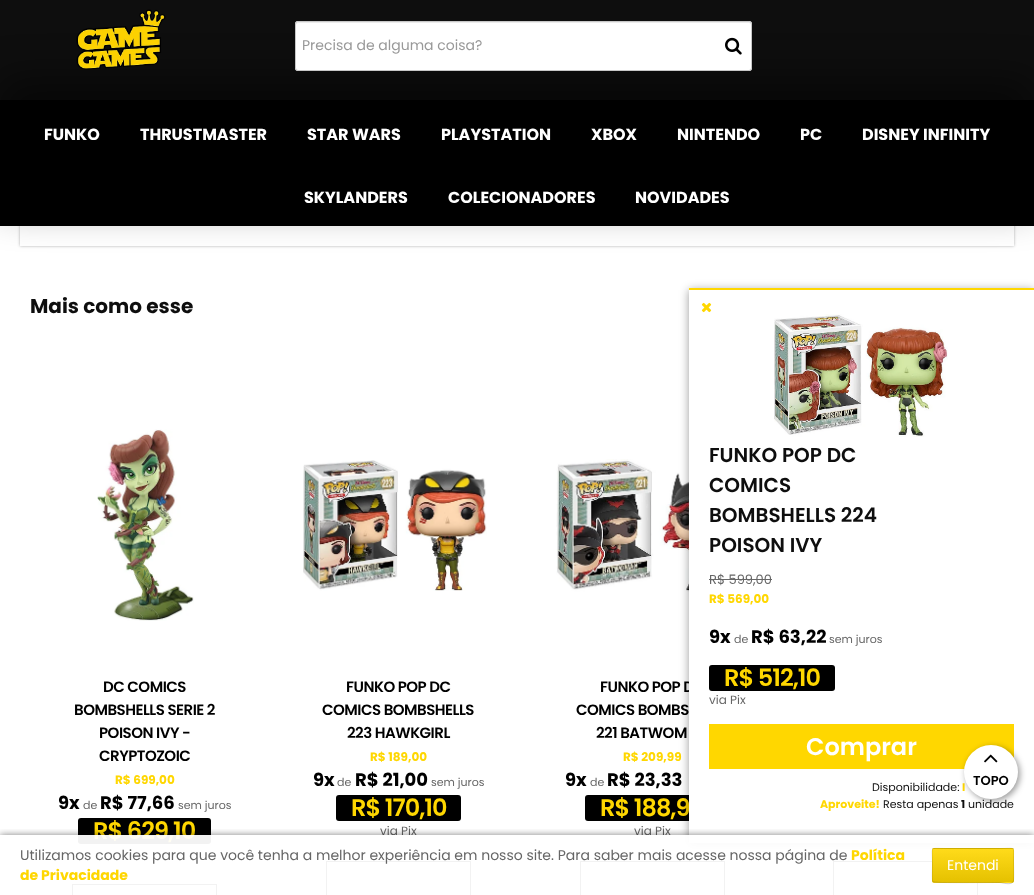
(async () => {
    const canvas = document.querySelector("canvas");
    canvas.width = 1034;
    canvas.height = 895;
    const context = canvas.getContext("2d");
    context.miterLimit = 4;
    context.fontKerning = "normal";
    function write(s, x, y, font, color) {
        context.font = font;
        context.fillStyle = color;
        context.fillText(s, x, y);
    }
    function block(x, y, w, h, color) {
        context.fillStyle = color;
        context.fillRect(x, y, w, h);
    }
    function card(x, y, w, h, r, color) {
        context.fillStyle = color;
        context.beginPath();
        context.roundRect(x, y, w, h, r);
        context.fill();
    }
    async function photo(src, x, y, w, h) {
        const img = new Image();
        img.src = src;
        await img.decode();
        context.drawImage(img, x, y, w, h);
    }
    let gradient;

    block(0, 0, 1034, 895, "rgb(255, 255, 255)");
    block(0, 0, 1034, 100, "rgb(14, 14, 14)");
    context.fillStyle = "rgba(0, 0, 0, 0.5)";
    context.filter = "blur(20px)";
    context.beginPath();
    context.rect(0, 80, 1034, 126);
    context.fill();
    context.filter = "none";
    await photo("media/1.png", 76, 9, 90, 61);
    card(295, 21, 457, 50, 3, "rgb(255, 255, 255)");
    context.fillStyle = "rgb(236, 236, 236)";
    context.beginPath();
    context.moveTo(298, 23);
    context.lineTo(749, 23);
    context.bezierCurveTo(750, 23, 751, 24, 751, 25);
    context.bezierCurveTo(751, 24, 751, 22, 749, 22);
    context.lineTo(298, 22);
    context.lineTo(296, 23);
    context.lineTo(296, 25);
    context.bezierCurveTo(296, 24, 297, 23, 298, 23);
    context.closePath();
    context.fill();
    context.beginPath();
    context.roundRect(295.5, 21.5, 456, 49, 2.5);
    context.strokeStyle = "rgb(199, 199, 199)";
    context.stroke();
    write("Precisa de alguma coisa?", 302, 50, "14px Poppins", "rgb(153, 153, 153)");
    await photo("media/2.png", 725, 37, 17, 18);
    context.save();
    context.beginPath();
    context.moveTo(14, 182);
    context.lineTo(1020, 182);
    context.lineTo(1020, 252);
    context.lineTo(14, 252);
    context.closePath();
    context.moveTo(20, 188);
    context.lineTo(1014, 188);
    context.lineTo(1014, 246);
    context.lineTo(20, 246);
    context.closePath();
    context.clip("evenodd");
    context.fillStyle = "rgba(0, 0, 0, 0.3)";
    context.filter = "blur(1.5px)";
    context.beginPath();
    context.rect(20, 188, 994, 58);
    context.fill();
    context.filter = "none";
    context.restore();
    block(0, 100, 1034, 126, "rgb(0, 0, 0)");
    write("FUNKO", 44, 140, "bold 16px Poppins", "rgb(255, 255, 255)");
    write("THRUSTMASTER", 140, 140, "bold 16px Poppins", "rgb(255, 255, 255)");
    write("STAR WARS", 307, 140, "bold 16px Poppins", "rgb(255, 255, 255)");
    write("PLAYSTATION", 441, 140, "bold 16px Poppins", "rgb(255, 255, 255)");
    write("XBOX", 591, 140, "bold 16px Poppins", "rgb(255, 255, 255)");
    write("NINTENDO", 677, 140, "bold 16px Poppins", "rgb(255, 255, 255)");
    write("PC", 800, 140, "bold 16px Poppins", "rgb(255, 255, 255)");
    write("DISNEY INFINITY", 862, 140, "bold 16px Poppins", "rgb(255, 255, 255)");
    write("SKYLANDERS", 304, 203, "bold 16px Poppins", "rgb(255, 255, 255)");
    write("COLECIONADORES", 448, 203, "bold 16px Poppins", "rgb(255, 255, 255)");
    write("NOVIDADES", 635, 203, "bold 16px Poppins", "rgb(255, 255, 255)");
    write("Mais como esse", 30, 313, "bold 20px Poppins", "rgb(14, 14, 14)");
    await photo("media/3.png", 97, 429, 97, 192);
    context.letterSpacing = "-0.5px";
    write("DC COMICS", 103, 692, "600 15px Poppins", "rgb(0, 0, 0)");
    write("BOMBSHELLS SERIE 2", 74, 715, "600 15px Poppins", "rgb(0, 0, 0)");
    write("POISON IVY -", 99, 738, "600 15px Poppins", "rgb(0, 0, 0)");
    write("CRYPTOZOIC", 99, 761, "600 15px Poppins", "rgb(0, 0, 0)");
    context.letterSpacing = "0px";
    write("R$ 699,00", 115, 784, "bold 12px Poppins", "rgb(255, 215, 0)");
    write("9x", 58, 809, "bold 18px Poppins", "rgb(0, 0, 0)");
    write("de", 83, 809, "11px Poppins", "rgb(102, 102, 102)");
    write("R$ 77,66", 100, 809, "bold 18px Poppins", "rgb(0, 0, 0)");
    write("sem juros", 178, 809, "11px Poppins", "rgb(102, 102, 102)");
    card(78, 818, 133, 26, 3, "rgb(0, 0, 0)");
    context.letterSpacing = "-1px";
    write("R$ 629,10", 93, 839, "600 24px Poppins", "rgb(255, 215, 0)");
    context.strokeStyle = "rgb(0, 0, 0)";
    context.strokeRect(72.5, 884.5, 144, 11);
    await photo("media/4.png", 303, 460, 184, 131);
    context.letterSpacing = "-0.5px";
    write("FUNKO POP DC", 346, 692, "600 15px Poppins", "rgb(0, 0, 0)");
    write("COMICS BOMBSHELLS", 322, 715, "600 15px Poppins", "rgb(0, 0, 0)");
    write("223 HAWKGIRL", 347, 738, "600 15px Poppins", "rgb(0, 0, 0)");
    context.letterSpacing = "0px";
    write("R$ 189,00", 370, 761, "bold 12px Poppins", "rgb(255, 215, 0)");
    write("9x", 313, 786, "bold 18px Poppins", "rgb(0, 0, 0)");
    write("de", 337, 786, "11px Poppins", "rgb(102, 102, 102)");
    write("R$ 21,00", 355, 786, "bold 18px Poppins", "rgb(0, 0, 0)");
    write("sem juros", 431, 786, "11px Poppins", "rgb(102, 102, 102)");
    card(336, 795, 125, 26, 3, "rgb(0, 0, 0)");
    context.letterSpacing = "-1px";
    write("R$ 170,10", 351, 816, "600 24px Poppins", "rgb(255, 215, 0)");
    context.letterSpacing = "0px";
    write("via Pix", 380, 835, "12px Poppins", "rgb(102, 102, 102)");
    context.strokeRect(326.5, 861.5, 144, 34);
    await photo("media/5.png", 556, 459, 133, 133);
    context.letterSpacing = "-0.5px";
    write("FUNKO POP D", 600, 692, "600 15px Poppins", "rgb(0, 0, 0)");
    write("COMICS BOMBS", 576, 715, "600 15px Poppins", "rgb(0, 0, 0)");
    write("221 BATWOM", 596, 738, "600 15px Poppins", "rgb(0, 0, 0)");
    context.letterSpacing = "0px";
    write("R$ 209,99", 623, 761, "bold 12px Poppins", "rgb(255, 215, 0)");
    write("9x", 565, 786, "bold 18px Poppins", "rgb(0, 0, 0)");
    write("de", 590, 786, "11px Poppins", "rgb(102, 102, 102)");
    write("R$ 23,33", 607, 786, "bold 18px Poppins", "rgb(0, 0, 0)");
    card(585, 795, 134, 26, 3, "rgb(0, 0, 0)");
    context.letterSpacing = "-1px";
    write("R$ 188,9", 600, 816, "600 24px Poppins", "rgb(255, 215, 0)");
    context.letterSpacing = "0px";
    write("via Pix", 634, 835, "12px Poppins", "rgb(102, 102, 102)");
    context.strokeRect(580.5, 861.5, 144, 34);
    context.strokeRect(833.5, 861.5, 144, 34);
    context.fillStyle = "rgba(0, 0, 0, 0.4)";
    context.filter = "blur(5px)";
    context.beginPath();
    context.rect(689, 290, 345, 555);
    context.fill();
    context.filter = "none";
    block(689, 290, 345, 553, "rgb(255, 255, 255)");
    block(689, 288, 345, 2, "rgb(255, 215, 0)");
    await photo("media/6.png", 701, 302, 11, 11);
    await photo("media/7.png", 774, 314, 174, 123);
    write("FUNKO POP DC", 709, 462, "600 20px Poppins", "rgb(14, 14, 14)");
    write("COMICS", 709, 492, "600 20px Poppins", "rgb(14, 14, 14)");
    write("BOMBSHELLS 224", 709, 522, "600 20px Poppins", "rgb(14, 14, 14)");
    write("POISON IVY", 709, 552, "600 20px Poppins", "rgb(14, 14, 14)");
    write("R$ 599,00", 709, 584, "13px Poppins", "rgb(102, 102, 102)");
    block(709, 579, 63, 1, "rgb(102, 102, 102)");
    write("R$ 569,00", 709, 603, "bold 12px Poppins", "rgb(255, 215, 0)");
    write("9x", 709, 643, "bold 18px Poppins", "rgb(0, 0, 0)");
    write("de", 734, 643, "11px Poppins", "rgb(102, 102, 102)");
    write("R$ 63,22", 751, 643, "bold 18px Poppins", "rgb(0, 0, 0)");
    write("sem juros", 829, 643, "11px Poppins", "rgb(102, 102, 102)");
    card(709, 665, 126, 26, 3, "rgb(0, 0, 0)");
    context.letterSpacing = "-1px";
    write("R$ 512,10", 724, 686, "600 24px Poppins", "rgb(255, 215, 0)");
    context.letterSpacing = "0px";
    write("via Pix", 709, 704, "12px Poppins", "rgb(102, 102, 102)");
    block(709, 724, 305, 45, "rgb(255, 215, 0)");
    write("Comprar", 806, 755, "600 24px Poppins", "rgb(255, 255, 255)");
    write("Disponibilidade:", 872, 791, "11px Poppins", "rgb(14, 14, 14)");
    write("I", 962, 791, "bold 11px Poppins", "rgb(255, 215, 0)");
    write("Aproveite!", 820, 808, "bold 11px Poppins", "rgb(255, 215, 0)");
    write("Resta apenas", 883, 808, "11px Poppins", "rgb(14, 14, 14)");
    write("1", 961, 808, "bold 11px Poppins", "rgb(14, 14, 14)");
    write("unidade", 968, 808, "11px Poppins", "rgb(14, 14, 14)");
    context.fillStyle = "rgba(0, 0, 0, 0.4)";
    context.filter = "blur(3px)";
    context.beginPath();
    context.roundRect(966, 747, 54, 54, 27);
    context.fill();
    context.filter = "none";
    context.fillStyle = "rgb(255, 255, 255)";
    context.beginPath();
    context.arc(991, 772, 27, 0, Math.PI * 2);
    context.fill();
    await photo("media/8.png", 984, 754, 14, 9);
    write("TOPO", 973, 785, "600 13px Poppins", "rgb(0, 0, 0)");
    context.save();
    context.beginPath();
    context.rect(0, 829, 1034, 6);
    context.clip();
    context.fillStyle = "rgba(0, 0, 0, 0.5)";
    context.filter = "blur(3.5px)";
    context.beginPath();
    context.rect(0, 835, 1034, 60);
    context.fill();
    context.filter = "none";
    context.restore();
    block(72, 835, 962, 60, "rgba(255, 255, 255, 0.95)");
    write("Utilizamos cookies para que você tenha a melhor experiência em nosso site. Para saber mais acesse nossa página de", 20, 860, "14px Poppins", "rgb(102, 102, 102)");
    write("Política", 851, 860, "bold 14px Poppins", "rgb(255, 215, 0)");
    write("de Privacidade", 20, 880, "bold 14px Poppins", "rgb(255, 215, 0)");
    card(932, 848, 82, 35, 2, "rgb(255, 215, 0)");
    gradient = context.createLinearGradient(973, 816, 973, 849);
    gradient.addColorStop(0, "rgba(255, 255, 255, 0.1)");
    gradient.addColorStop(1, "rgba(0, 0, 0, 0.1)");
    context.fillStyle = gradient;
    context.fillRect(932, 848, 82, 1);
    gradient = context.createLinearGradient(973, 849, 973, 882);
    gradient.addColorStop(0, "rgba(255, 255, 255, 0.1)");
    gradient.addColorStop(1, "rgba(0, 0, 0, 0.1)");
    context.fillStyle = gradient;
    context.fillRect(932, 849, 82, 33);
    gradient = context.createLinearGradient(973, 882, 973, 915);
    gradient.addColorStop(0, "rgba(255, 255, 255, 0.1)");
    gradient.addColorStop(1, "rgba(0, 0, 0, 0.1)");
    context.fillStyle = gradient;
    context.fillRect(932, 882, 82, 1);
    context.beginPath();
    context.moveTo(1013, 882);
    context.bezierCurveTo(1009.5, 885.5, 1003.5, 882.5, 999, 882.5);
    context.bezierCurveTo(992.5, 882.5, 934, 883, 933, 882);
    context.strokeStyle = "rgba(0, 0, 0, 0.2)";
    context.stroke();
    context.beginPath();
    context.moveTo(933, 882);
    context.bezierCurveTo(931.5, 880.5, 932.5, 868, 932.5, 865.5);
    context.bezierCurveTo(932.5, 845, 928, 848.5, 947, 848.5);
    context.lineTo(999, 848.5);
    context.bezierCurveTo(1016, 848.5, 1013.5, 845, 1013.5, 860.5);
    context.bezierCurveTo(1013.5, 863, 1014.5, 881, 1013, 882);
    context.strokeStyle = "rgba(0, 0, 0, 0.1)";
    context.stroke();
    write("Entendi", 947, 870, "14px Poppins", "rgb(255, 255, 255)");
})();
